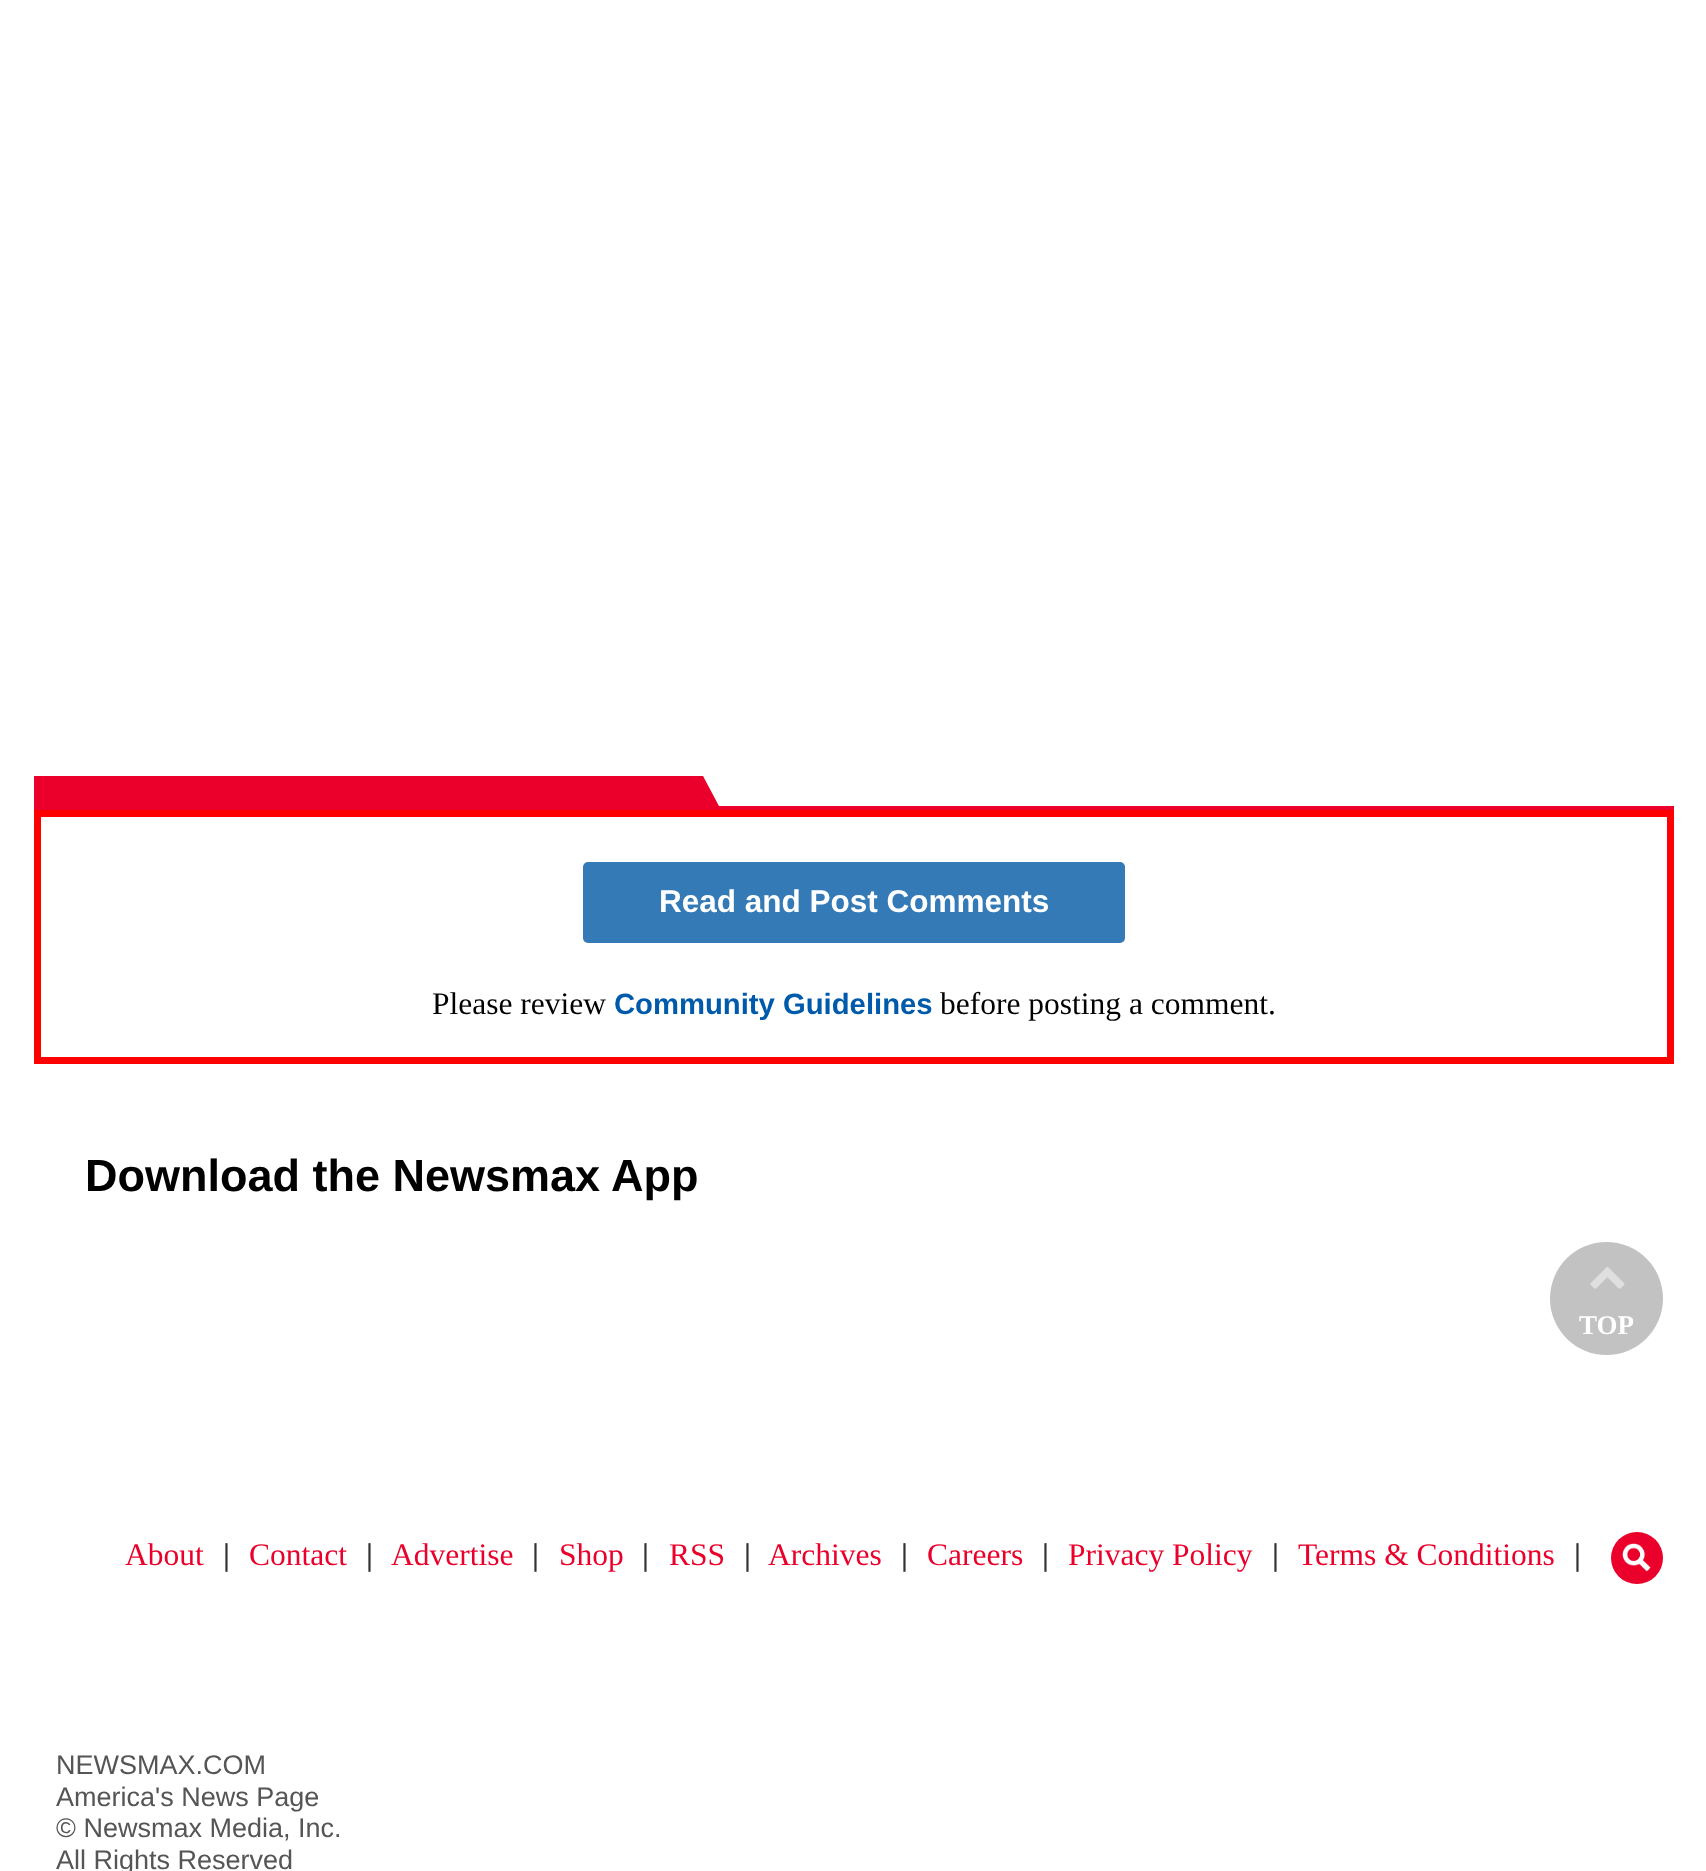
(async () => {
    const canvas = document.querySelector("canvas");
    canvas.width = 1706;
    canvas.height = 1871;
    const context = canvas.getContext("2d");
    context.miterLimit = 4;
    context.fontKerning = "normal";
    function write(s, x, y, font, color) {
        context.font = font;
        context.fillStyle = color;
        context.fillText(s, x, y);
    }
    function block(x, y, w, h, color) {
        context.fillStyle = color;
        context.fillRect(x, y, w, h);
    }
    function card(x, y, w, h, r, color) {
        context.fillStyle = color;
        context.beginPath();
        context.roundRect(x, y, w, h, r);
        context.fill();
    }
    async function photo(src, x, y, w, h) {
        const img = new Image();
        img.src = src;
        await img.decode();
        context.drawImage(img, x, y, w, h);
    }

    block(0, 0, 1706, 1871, "rgb(255, 255, 255)");
    block(34, 806, 1640, 4, "rgb(234, 0, 42)");
    context.beginPath();
    context.moveTo(720, 808);
    context.lineTo(34, 808);
    context.lineTo(34, 776);
    context.lineTo(703, 776);
    context.closePath();
    context.fill();
    context.strokeStyle = "rgb(255, 0, 0)";
    context.lineWidth = 7;
    context.strokeRect(37.5, 813.5, 1633, 247);
    card(583, 862, 542, 81, 5, "rgb(51, 122, 183)");
    write("Read and Post Comments", 659, 912, "bold 31.5px Liberation Sans", "rgb(255, 255, 255)");
    write("Please review", 432, 1014, "31.5px Liberation Serif", "rgb(0, 0, 0)");
    write("Community Guidelines", 614, 1014, "bold 29.25px Liberation Sans", "rgb(0, 90, 171)");
    write("before posting a comment.", 940, 1014, "31.5px Liberation Serif", "rgb(0, 0, 0)");
    context.fillStyle = "rgb(194, 194, 194)";
    context.beginPath();
    context.arc(1606.5, 1298.5, 56.5, 0, Math.PI * 2);
    context.fill();
    await photo("media/1.png", 1590, 1267, 35, 22);
    write("TOP", 1579, 1334, "bold 27px Liberation Serif", "rgb(255, 255, 255)");
    write("Download the Newsmax App", 85, 1191, "bold 45px Liberation Sans", "rgb(0, 0, 0)");
    write("About", 125, 1565, "31.5px Liberation Serif", "rgb(234, 0, 42)");
    write("|", 223, 1565, "bold 31.5px Liberation Serif", "rgb(51, 51, 51)");
    write("Contact", 249, 1565, "31.5px Liberation Serif", "rgb(234, 0, 42)");
    write("|", 366, 1565, "bold 31.5px Liberation Serif", "rgb(51, 51, 51)");
    write("Advertise", 391, 1565, "31.5px Liberation Serif", "rgb(234, 0, 42)");
    write("|", 532, 1565, "bold 31.5px Liberation Serif", "rgb(51, 51, 51)");
    write("Shop", 559, 1565, "31.5px Liberation Serif", "rgb(234, 0, 42)");
    write("|", 642, 1565, "bold 31.5px Liberation Serif", "rgb(51, 51, 51)");
    write("RSS", 669, 1565, "31.5px Liberation Serif", "rgb(234, 0, 42)");
    write("|", 744, 1565, "bold 31.5px Liberation Serif", "rgb(51, 51, 51)");
    write("Archives", 768, 1565, "31.5px Liberation Serif", "rgb(234, 0, 42)");
    write("|", 901, 1565, "bold 31.5px Liberation Serif", "rgb(51, 51, 51)");
    write("Careers", 927, 1565, "31.5px Liberation Serif", "rgb(234, 0, 42)");
    write("|", 1042, 1565, "bold 31.5px Liberation Serif", "rgb(51, 51, 51)");
    write("Privacy Policy", 1068, 1565, "31.5px Liberation Serif", "rgb(234, 0, 42)");
    write("|", 1272, 1565, "bold 31.5px Liberation Serif", "rgb(51, 51, 51)");
    write("Terms & Conditions", 1298, 1565, "31.5px Liberation Serif", "rgb(234, 0, 42)");
    write("|", 1574, 1565, "bold 31.5px Liberation Serif", "rgb(51, 51, 51)");
    context.fillStyle = "rgb(234, 0, 42)";
    context.beginPath();
    context.arc(1637, 1558, 26, 0, Math.PI * 2);
    context.fill();
    await photo("media/2.png", 1622, 1543, 29, 29);
    write("NEWSMAX.COM", 56, 1774, "27px Liberation Sans", "rgb(85, 85, 85)");
    write("America's News Page", 56, 1806, "27px Liberation Sans", "rgb(85, 85, 85)");
    write("© Newsmax Media, Inc.", 56, 1837, "27px Liberation Sans", "rgb(85, 85, 85)");
    write("All Rights Reserved", 56, 1869, "27px Liberation Sans", "rgb(85, 85, 85)");
})();
